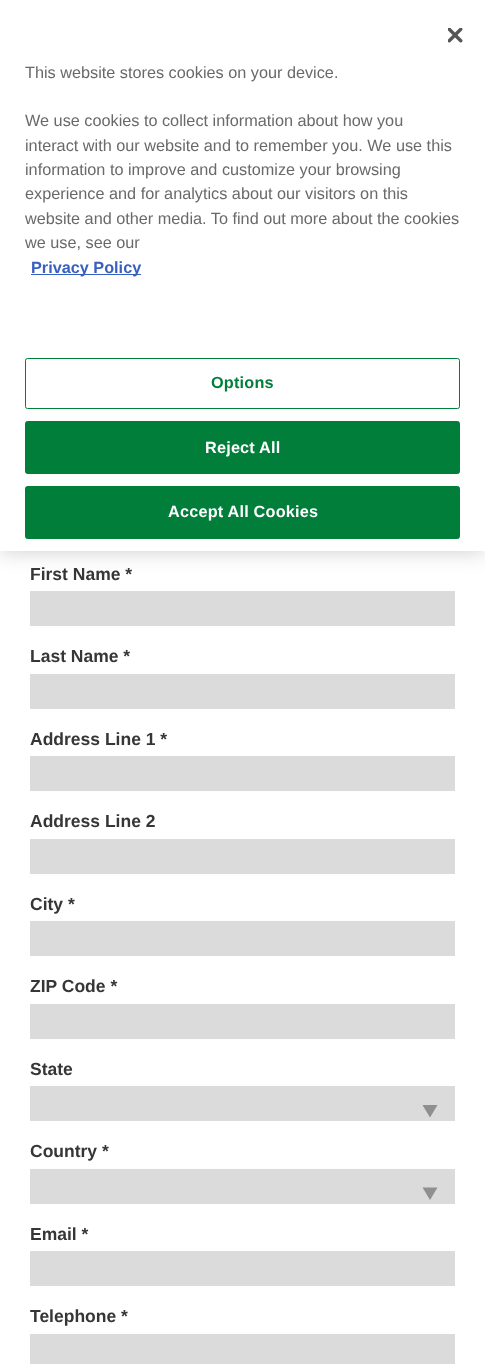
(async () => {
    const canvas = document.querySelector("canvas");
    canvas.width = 485;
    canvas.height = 1364;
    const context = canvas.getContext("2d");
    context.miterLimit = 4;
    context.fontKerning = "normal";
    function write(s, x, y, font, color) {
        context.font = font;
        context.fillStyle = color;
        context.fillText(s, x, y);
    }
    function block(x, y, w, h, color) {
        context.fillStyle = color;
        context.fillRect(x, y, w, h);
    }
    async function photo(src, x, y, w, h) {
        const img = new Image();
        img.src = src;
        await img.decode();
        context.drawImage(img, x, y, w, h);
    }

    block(0, 0, 485, 1364, "rgb(255, 255, 255)");
    context.fillStyle = "rgba(0, 0, 0, 0.2)";
    context.filter = "blur(11px)";
    context.beginPath();
    context.rect(0, 0, 485, 551);
    context.fill();
    context.filter = "none";
    block(0, 0, 485, 551, "rgb(255, 255, 255)");
    await photo("media/1.png", 448, 28, 15, 15);
    write("This website stores cookies on your device.", 25, 78, "16.25px Liberation Sans", "rgb(105, 105, 105)");
    write("We use cookies to collect information about how you", 25, 126, "16.25px Liberation Sans", "rgb(105, 105, 105)");
    write("interact with our website and to remember you. We use this", 25, 151, "16.25px Liberation Sans", "rgb(105, 105, 105)");
    write("information to improve and customize your browsing", 25, 175, "16.25px Liberation Sans", "rgb(105, 105, 105)");
    write("experience and for analytics about our visitors on this", 25, 199, "16.25px Liberation Sans", "rgb(105, 105, 105)");
    write("website and other media. To find out more about the cookies", 25, 224, "16.25px Liberation Sans", "rgb(105, 105, 105)");
    write("we use, see our", 25, 248, "16.25px Liberation Sans", "rgb(105, 105, 105)");
    block(31, 274, 110, 1, "rgb(56, 96, 190)");
    write("Privacy Policy", 31, 273, "bold 16.25px Liberation Sans", "rgb(56, 96, 190)");
    context.beginPath();
    context.roundRect(25.5, 358.5, 434, 50, 2);
    context.strokeStyle = "rgb(0, 126, 58)";
    context.stroke();
    context.letterSpacing = "0.2px";
    write("Options", 211, 388, "bold 16.25px Liberation Sans", "rgb(0, 126, 58)");
    context.beginPath();
    context.roundRect(25.5, 421.5, 434, 52, 2);
    context.fill();
    context.stroke();
    write("Reject All", 205, 453, "bold 16.25px Liberation Sans", "rgb(255, 255, 255)");
    context.fillStyle = "rgb(0, 126, 58)";
    context.beginPath();
    context.roundRect(25.5, 486.5, 434, 52, 2);
    context.fill();
    context.stroke();
    write("Accept All Cookies", 168, 517, "bold 16.25px Liberation Sans", "rgb(255, 255, 255)");
    context.letterSpacing = "0px";
    write("First Name *", 30, 580, "bold 17.5px Liberation Sans", "rgb(54, 54, 54)");
    block(30, 591, 425, 35, "rgb(219, 219, 219)");
    write("Last Name *", 30, 662, "bold 17.5px Liberation Sans", "rgb(54, 54, 54)");
    block(30, 674, 425, 35, "rgb(219, 219, 219)");
    write("Address Line 1 *", 30, 745, "bold 17.5px Liberation Sans", "rgb(54, 54, 54)");
    block(30, 756, 425, 35, "rgb(219, 219, 219)");
    write("Address Line 2", 30, 827, "bold 17.5px Liberation Sans", "rgb(54, 54, 54)");
    block(30, 839, 425, 35, "rgb(219, 219, 219)");
    write("City *", 30, 910, "bold 17.5px Liberation Sans", "rgb(54, 54, 54)");
    block(30, 921, 425, 35, "rgb(219, 219, 219)");
    write("ZIP Code *", 30, 992, "bold 17.5px Liberation Sans", "rgb(54, 54, 54)");
    block(30, 1004, 425, 35, "rgb(219, 219, 219)");
    write("State", 30, 1075, "bold 17.5px Liberation Sans", "rgb(54, 54, 54)");
    block(30, 1086, 425, 35, "rgb(219, 219, 219)");
    context.fillStyle = "rgb(143, 143, 143)";
    context.beginPath();
    context.moveTo(422.5, 1105);
    context.lineTo(437.5, 1105);
    context.lineTo(430, 1117.5);
    context.closePath();
    context.fill();
    write("Country *", 30, 1157, "bold 17.5px Liberation Sans", "rgb(54, 54, 54)");
    block(30, 1169, 425, 35, "rgb(219, 219, 219)");
    context.fillStyle = "rgb(143, 143, 143)";
    context.beginPath();
    context.moveTo(422.5, 1187.5);
    context.lineTo(437.5, 1187.5);
    context.lineTo(430, 1200);
    context.closePath();
    context.fill();
    write("Email *", 30, 1240, "bold 17.5px Liberation Sans", "rgb(54, 54, 54)");
    block(30, 1251, 425, 35, "rgb(219, 219, 219)");
    write("Telephone *", 30, 1322, "bold 17.5px Liberation Sans", "rgb(54, 54, 54)");
    block(30, 1334, 425, 30, "rgb(219, 219, 219)");
})();
